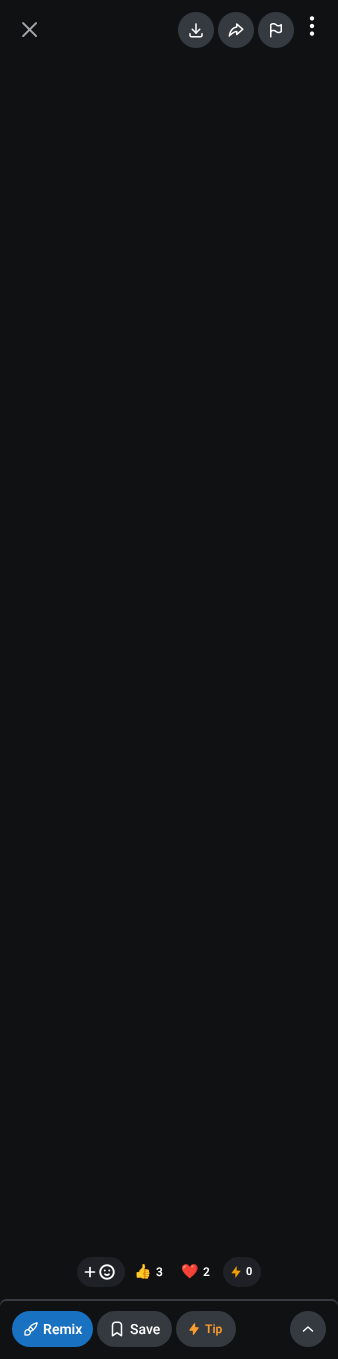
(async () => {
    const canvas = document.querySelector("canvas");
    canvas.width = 338;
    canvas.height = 1359;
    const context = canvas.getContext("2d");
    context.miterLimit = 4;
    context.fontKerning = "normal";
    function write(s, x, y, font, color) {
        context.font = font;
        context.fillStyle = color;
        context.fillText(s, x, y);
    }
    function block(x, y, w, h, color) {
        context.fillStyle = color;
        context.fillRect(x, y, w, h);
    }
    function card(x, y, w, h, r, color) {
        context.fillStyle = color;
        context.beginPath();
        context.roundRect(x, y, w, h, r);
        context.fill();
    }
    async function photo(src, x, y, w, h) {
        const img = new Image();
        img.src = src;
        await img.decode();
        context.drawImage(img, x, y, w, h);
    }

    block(0, 0, 338, 1359, "rgb(16, 17, 19)");
    await photo("media/1.png", 22, 22, 15, 15);
    context.fillStyle = "rgb(52, 58, 64)";
    context.beginPath();
    context.arc(196, 30, 18, 0, Math.PI * 2);
    context.fill();
    await photo("media/2.png", 189, 23, 14, 15);
    context.beginPath();
    context.arc(236, 30, 18, 0, Math.PI * 2);
    context.fill();
    await photo("media/3.png", 228, 23, 16, 14);
    context.beginPath();
    context.arc(276, 30, 18, 0, Math.PI * 2);
    context.fill();
    await photo("media/4.png", 270, 22, 12, 16);
    await photo("media/5.png", 309, 16, 6, 20);
    card(77, 1257, 48, 30, 15, "rgb(30, 33, 37)");
    context.beginPath();
    context.moveTo(90, 1267.5);
    context.lineTo(90, 1276.5);
    context.moveTo(85.5, 1272);
    context.lineTo(94.5, 1272);
    context.strokeStyle = "rgb(255, 255, 255)";
    context.lineWidth = 1.7;
    context.lineCap = "round";
    context.lineJoin = "round";
    context.stroke();
    await photo("media/6.png", 99, 1264, 16, 16);
    context.save();
    context.beginPath();
    context.rect(134, 1258, 29, 28);
    context.clip();
    write("👍", 134, 1276, "bold 14px Noto Color Emoji", "rgb(255, 255, 255)");
    context.restore();
    write("3", 156, 1276, "600 12px Roboto", "rgb(255, 255, 255)");
    context.save();
    context.beginPath();
    context.rect(181, 1258, 29, 28);
    context.clip();
    write("❤️", 181, 1276, "bold 14px Noto Color Emoji", "rgb(255, 255, 255)");
    context.restore();
    write("2", 203, 1276, "600 12px Roboto", "rgb(255, 255, 255)");
    card(223, 1257, 38, 30, 15, "rgb(30, 33, 37)");
    await photo("media/7.png", 231, 1266, 10, 12);
    write("0", 246, 1275, "bold 11px Roboto", "rgb(255, 255, 255)");
    context.fillStyle = "rgb(55, 58, 64)";
    context.beginPath();
    context.moveTo(6, 1301);
    context.lineTo(332, 1301);
    context.bezierCurveTo(335, 1301, 338, 1304, 338, 1307);
    context.lineTo(338, 1305);
    context.bezierCurveTo(338, 1302, 335, 1299, 332, 1299);
    context.lineTo(6, 1299);
    context.bezierCurveTo(3, 1299, 0, 1302, 0, 1305);
    context.lineTo(0, 1307);
    context.bezierCurveTo(0, 1304, 3, 1301, 6, 1301);
    context.closePath();
    context.fill();
    card(12, 1311, 81, 36, 18, "rgb(25, 113, 194)");
    await photo("media/8.png", 24, 1322, 14, 14);
    write("Remix", 43, 1334, "600 14px Roboto", "rgb(255, 255, 255)");
    card(97, 1311, 75, 36, 18, "rgb(52, 58, 64)");
    await photo("media/9.png", 111, 1321, 12, 16);
    write("Save", 130, 1334, "500 14px Roboto", "rgb(255, 255, 255)");
    card(176, 1311, 60, 36, 18, "rgb(52, 58, 64)");
    await photo("media/10.png", 189, 1323, 10, 12);
    write("Tip", 205, 1333, "600 12px Roboto", "rgb(252, 156, 45)");
    context.fillStyle = "rgb(52, 58, 64)";
    context.beginPath();
    context.arc(308, 1329, 18, 0, Math.PI * 2);
    context.fill();
    context.beginPath();
    context.moveTo(303.5, 1331);
    context.lineTo(308, 1327);
    context.lineTo(312.5, 1331);
    context.lineWidth = 1.5;
    context.stroke();
})();
